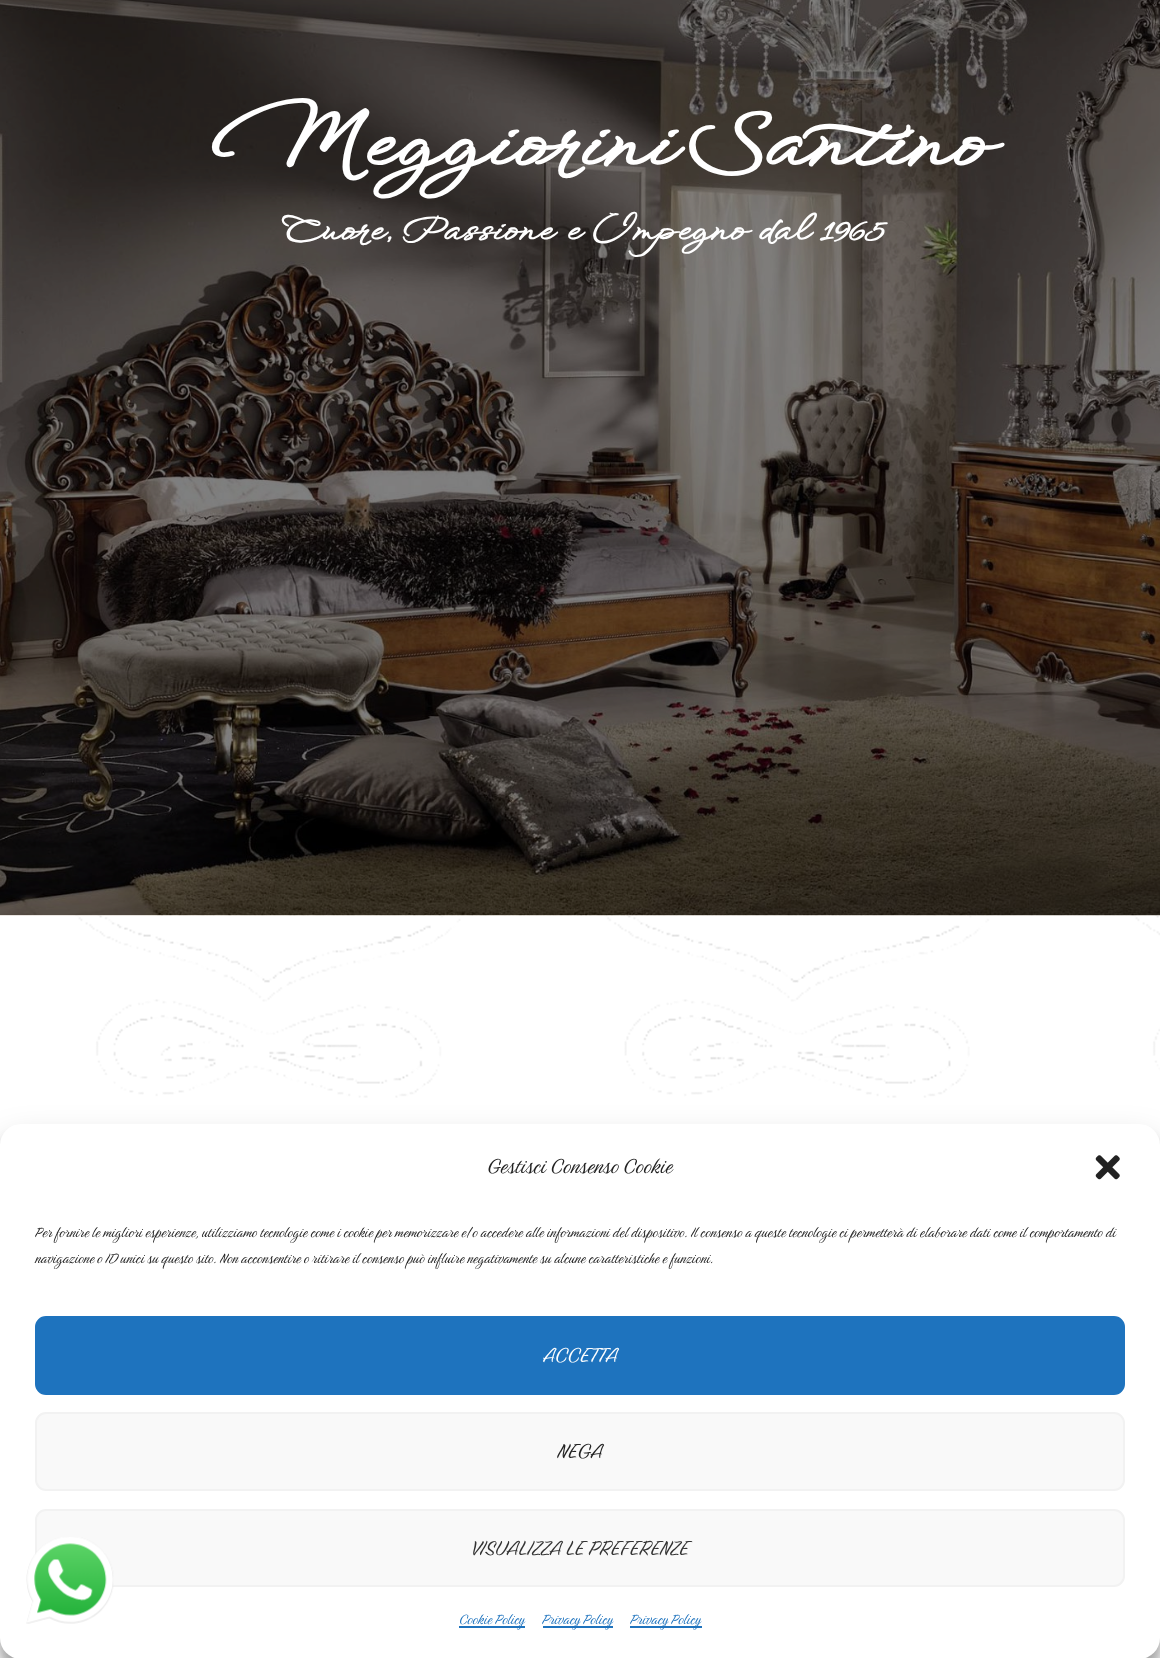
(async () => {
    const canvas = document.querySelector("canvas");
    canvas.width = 1160;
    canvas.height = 1658;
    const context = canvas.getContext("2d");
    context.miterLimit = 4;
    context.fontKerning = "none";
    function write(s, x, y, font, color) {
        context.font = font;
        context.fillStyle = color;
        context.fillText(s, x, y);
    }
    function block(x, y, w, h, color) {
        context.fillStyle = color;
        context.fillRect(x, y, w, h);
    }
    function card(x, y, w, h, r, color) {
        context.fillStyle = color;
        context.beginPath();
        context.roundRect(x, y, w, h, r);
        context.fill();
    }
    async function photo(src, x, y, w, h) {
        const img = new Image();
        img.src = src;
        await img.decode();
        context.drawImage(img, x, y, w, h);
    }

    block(0, 0, 1160, 1658, "rgb(255, 255, 255)");
    await photo("media/1.png", 75, 915, 1085, 743);
    await photo("media/2.png", 0, 0, 1160, 916);
    context.wordSpacing = "-5px";
    write("Meggiorini Santino", 211, 164, "bold 81.25px WindSong", "rgb(255, 255, 255)");
    context.wordSpacing = "0.5px";
    write("Cuore, Passione e Impegno dal 1965", 281, 239, "bold 35px WindSong", "rgb(255, 255, 255)");
    context.fillStyle = "rgba(0, 0, 0, 0.23)";
    context.filter = "blur(5px)";
    context.beginPath();
    context.roundRect(0, 1134, 1160, 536, 21);
    context.fill();
    context.filter = "none";
    context.fillStyle = "rgba(0, 0, 0, 0.19)";
    context.filter = "blur(17.5px)";
    context.beginPath();
    context.roundRect(0, 1141, 1160, 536, 21);
    context.fill();
    context.filter = "none";
    context.fillStyle = "rgba(0, 0, 0, 0.07)";
    context.filter = "blur(17.5px)";
    context.beginPath();
    context.rect(18, 1498, 1125, 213);
    context.fill();
    context.filter = "none";
    card(0, 1124, 1160, 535, 21, "rgb(255, 255, 255)");
    context.wordSpacing = "0px";
    write("Gestisci Consenso Cookie", 487, 1173, "26.25px Birthstone", "rgb(34, 34, 34)");
    await photo("media/3.png", 1095, 1155, 25, 25);
    write("Per fornire le migliori esperienze, utilizziamo tecnologie come i cookie per memorizzare e/o accedere alle informazioni del dispositivo. Il consenso a queste tecnologie ci permetterà di elaborare dati come il comportamento di", 35, 1237, "17.5px Birthstone", "rgb(34, 34, 34)");
    write("navigazione o ID unici su questo sito. Non acconsentire o ritirare il consenso può influire negativamente su alcune caratteristiche e funzioni.", 35, 1263, "17.5px Birthstone", "rgb(34, 34, 34)");
    context.fillStyle = "rgb(30, 115, 190)";
    context.beginPath();
    context.roundRect(36, 1317, 1088, 77, 10);
    context.fill();
    context.strokeStyle = "rgb(30, 115, 190)";
    context.lineWidth = 2;
    context.stroke();
    write("ACCETTA", 543, 1362, "26.25px Birthstone", "rgb(255, 255, 255)");
    context.fillStyle = "rgb(249, 249, 249)";
    context.beginPath();
    context.roundRect(36, 1413, 1088, 77, 10);
    context.fill();
    context.strokeStyle = "rgb(242, 242, 242)";
    context.stroke();
    write("NEGA", 557, 1458, "26.25px Birthstone", "rgb(34, 34, 34)");
    context.fillStyle = "rgb(249, 249, 249)";
    context.beginPath();
    context.roundRect(36, 1510, 1088, 76, 10);
    context.fill();
    context.stroke();
    write("VISUALIZZA LE PREFERENZE", 471, 1555, "26.25px Birthstone", "rgb(51, 51, 51)");
    block(459, 1626, 66, 2, "rgb(30, 115, 190)");
    write("Cookie Policy", 459, 1624, "17.5px Birthstone", "rgb(30, 115, 190)");
    block(543, 1626, 70, 2, "rgb(30, 115, 190)");
    write("Privacy Policy", 542, 1624, "17.5px Birthstone", "rgb(30, 115, 190)");
    block(630, 1626, 72, 2, "rgb(30, 115, 190)");
    write("Privacy Policy", 630, 1624, "17.5px Birthstone", "rgb(30, 115, 190)");
    await photo("media/4.png", 26, 1537, 88, 87);
})();
